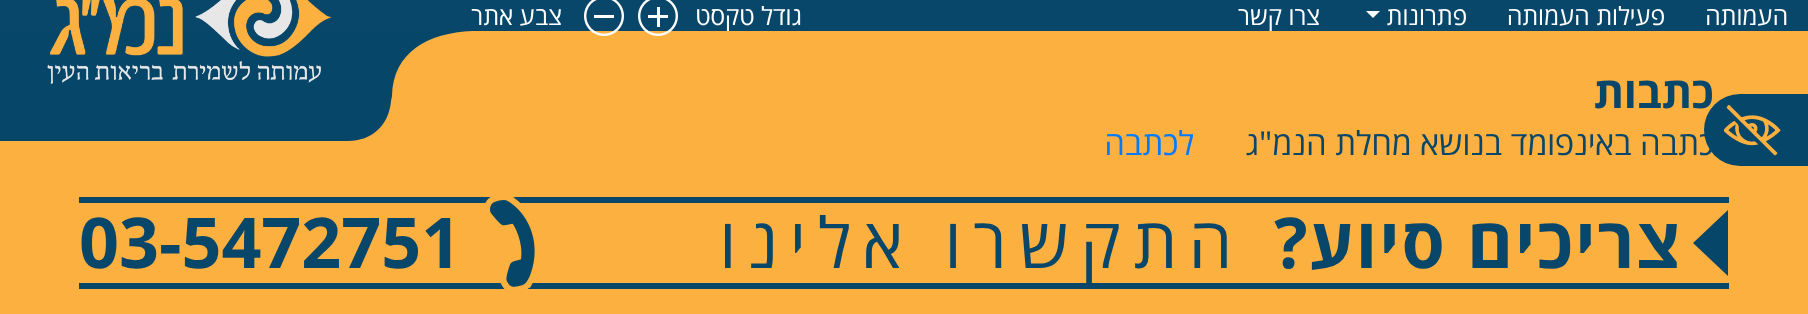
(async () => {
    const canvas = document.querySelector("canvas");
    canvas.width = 1808;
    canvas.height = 314;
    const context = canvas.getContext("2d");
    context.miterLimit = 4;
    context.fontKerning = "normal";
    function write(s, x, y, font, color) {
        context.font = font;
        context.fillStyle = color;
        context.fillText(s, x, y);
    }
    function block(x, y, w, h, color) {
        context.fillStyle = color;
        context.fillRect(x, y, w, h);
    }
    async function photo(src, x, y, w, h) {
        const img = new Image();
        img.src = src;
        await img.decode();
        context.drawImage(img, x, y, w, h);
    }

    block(0, 0, 1808, 314, "rgb(252, 176, 64)");
    block(0, 0, 1808, 31, "rgb(8, 70, 106)");
    context.direction = "rtl";
    write("העמותה", 1788, 25, "25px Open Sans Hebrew", "rgb(255, 255, 255)");
    write("פעילות העמותה", 1665, 25, "25px Open Sans Hebrew", "rgb(255, 255, 255)");
    write("פתרונות", 1467, 25, "25px Open Sans Hebrew", "rgb(255, 255, 255)");
    context.beginPath();
    context.moveTo(1366, 11);
    context.lineTo(1380, 11);
    context.lineTo(1373, 18);
    context.closePath();
    context.fill();
    write("צרו קשר", 1320, 25, "25px Open Sans Hebrew", "rgb(255, 255, 255)");
    write("גודל טקסט", 802, 25, "25px Open Sans Hebrew", "rgb(255, 255, 255)");
    await photo("media/1.png", 638, 0, 40, 36);
    await photo("media/2.png", 584, 0, 40, 36);
    write("צבע אתר", 562, 25, "25px Open Sans Hebrew", "rgb(255, 255, 255)");
    context.fillStyle = "rgb(5, 70, 105)";
    context.beginPath();
    context.moveTo(0, 141);
    context.lineTo(348, 141);
    context.bezierCurveTo(372, 141, 389, 125, 391, 101);
    context.lineTo(392, 96);
    context.bezierCurveTo(393, 52, 428, 33, 472, 31);
    context.lineTo(0, 31);
    context.closePath();
    context.fill();
    await photo("media/3.png", 47, 0, 284, 84);
    write("כתבות", 1714, 108, "bold 43px Open Sans Hebrew", "rgb(8, 70, 106)");
    write("כתבה באינפומד בנושא מחלת הנמ\"ג", 1714, 155, "33px Open Sans Hebrew", "rgb(8, 70, 106)");
    context.fillStyle = "rgb(5, 70, 105)";
    context.beginPath();
    context.arc(1740, 130, 36, 0, Math.PI * 2);
    context.fill();
    block(1740, 94, 68, 72, "rgb(5, 70, 105)");
    await photo("media/4.png", 1724, 105, 57, 51);
    write("לכתבה", 1194, 155, "33px Open Sans Hebrew", "rgb(0, 123, 255)");
    block(79, 197, 1650, 6, "rgb(8, 70, 106)");
    block(79, 283, 1650, 6, "rgb(8, 70, 106)");
    context.fillStyle = "rgb(5, 70, 105)";
    context.beginPath();
    context.moveTo(1693, 243);
    context.lineTo(1728, 210);
    context.lineTo(1728, 276);
    context.closePath();
    context.fill();
    context.letterSpacing = "2px";
    write("צריכים סיוע?", 1682, 268, "bold 70px Open Sans Hebrew", "rgb(8, 70, 106)");
    context.letterSpacing = "12px";
    write("התקשרו אלינו", 1244, 268, "70px Open Sans Hebrew", "rgb(8, 70, 106)");
    await photo("media/5.png", 485, 197, 50, 92);
    context.letterSpacing = "0px";
    context.direction = "ltr";
    write("03-5472751", 79, 268, "bold 70px Open Sans Hebrew", "rgb(8, 70, 106)");
})();
